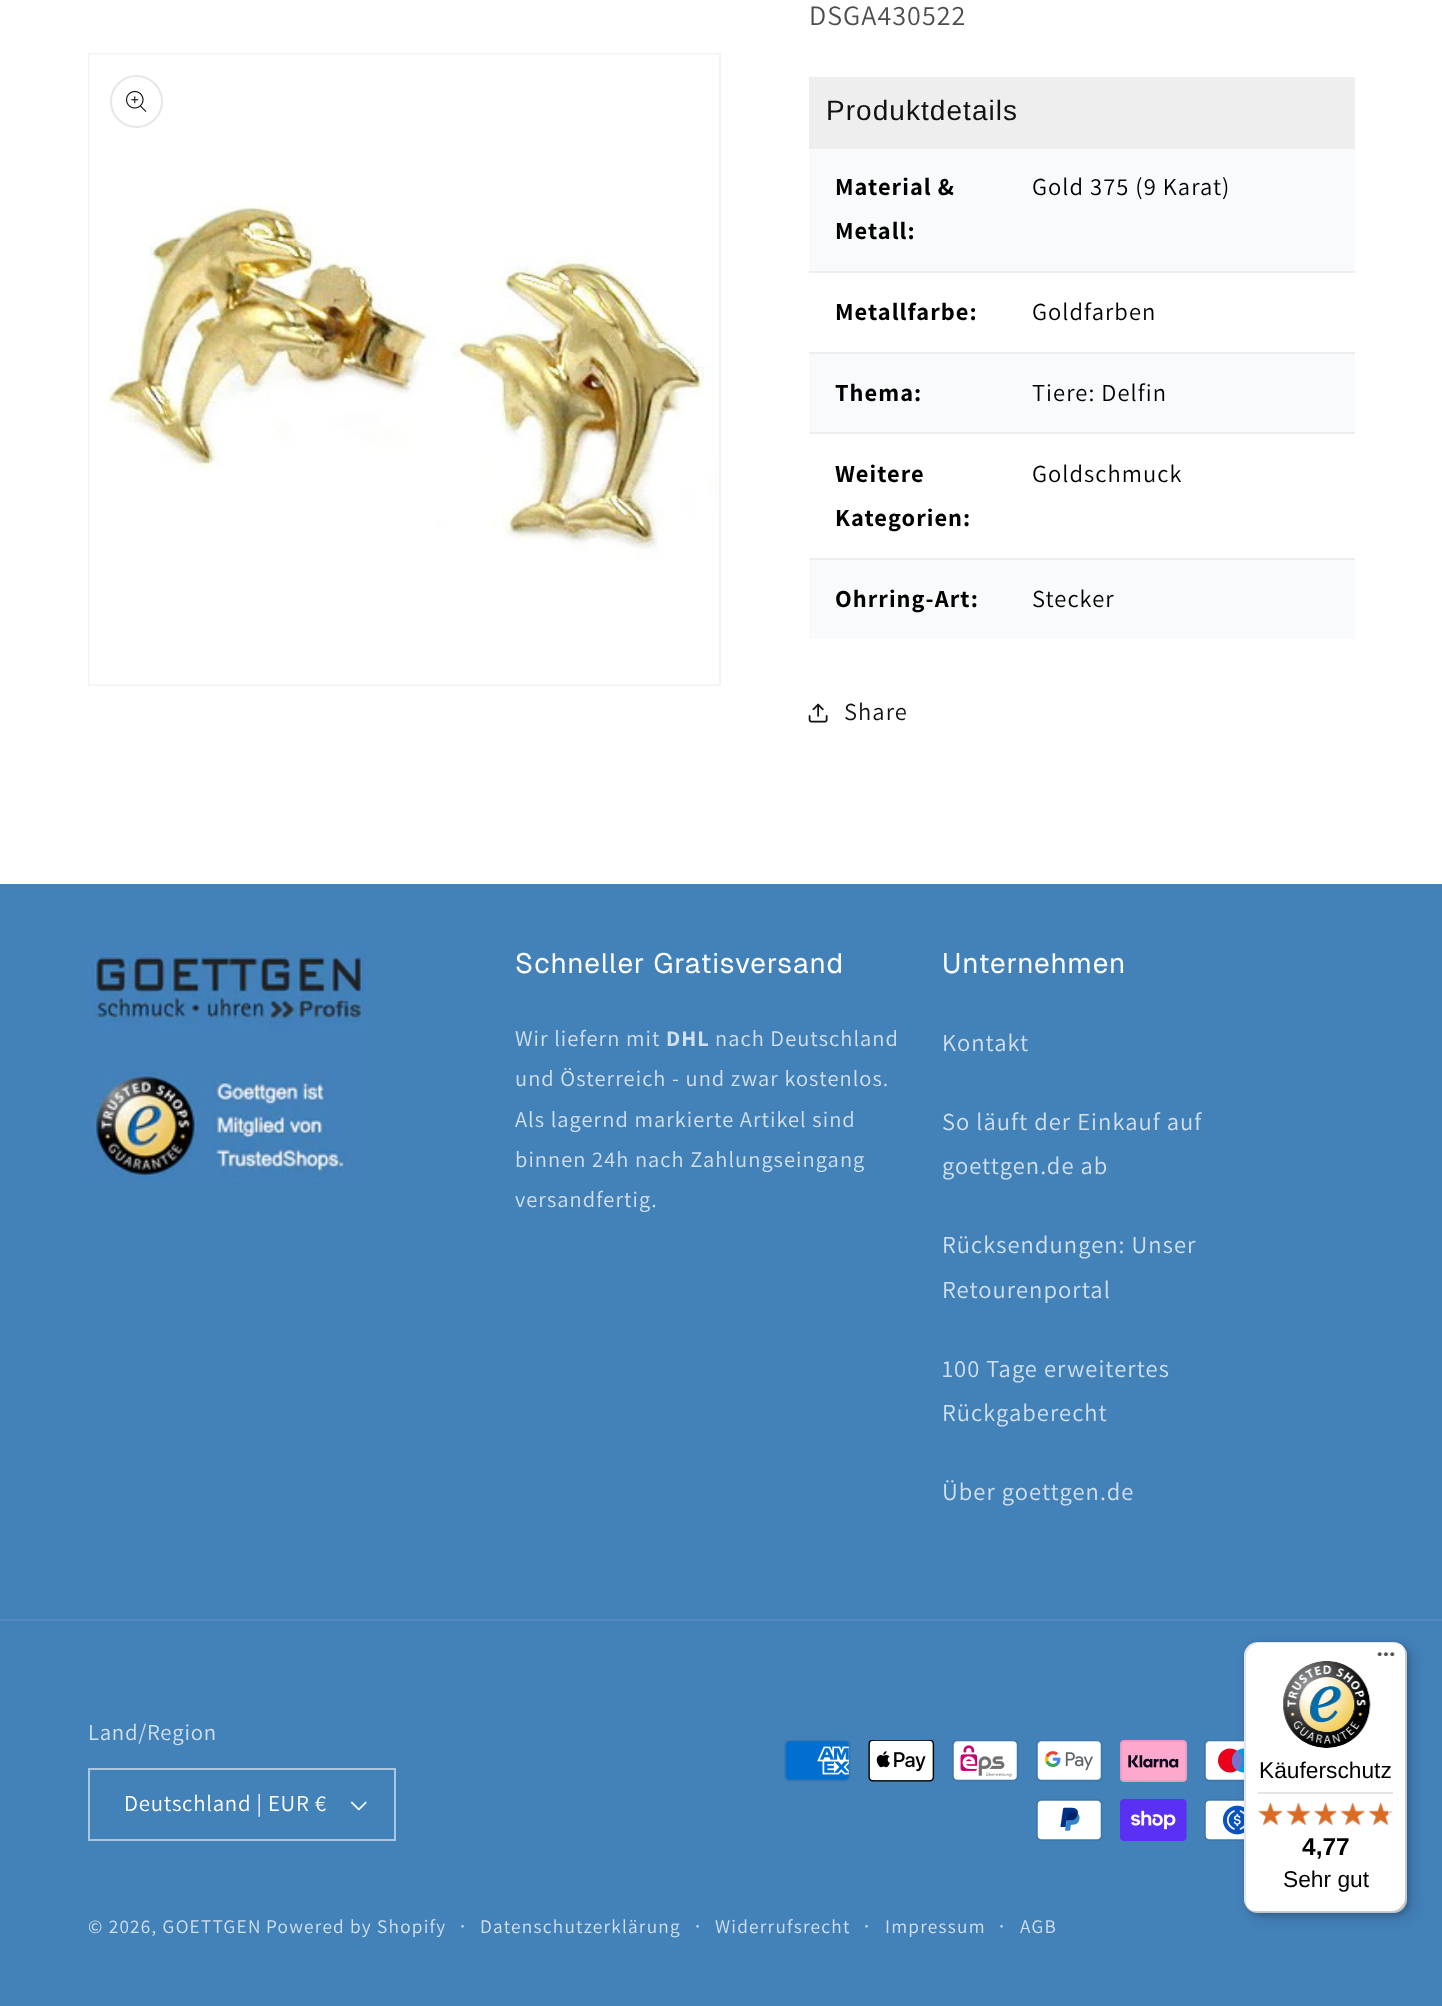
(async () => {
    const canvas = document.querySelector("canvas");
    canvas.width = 1442;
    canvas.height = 2006;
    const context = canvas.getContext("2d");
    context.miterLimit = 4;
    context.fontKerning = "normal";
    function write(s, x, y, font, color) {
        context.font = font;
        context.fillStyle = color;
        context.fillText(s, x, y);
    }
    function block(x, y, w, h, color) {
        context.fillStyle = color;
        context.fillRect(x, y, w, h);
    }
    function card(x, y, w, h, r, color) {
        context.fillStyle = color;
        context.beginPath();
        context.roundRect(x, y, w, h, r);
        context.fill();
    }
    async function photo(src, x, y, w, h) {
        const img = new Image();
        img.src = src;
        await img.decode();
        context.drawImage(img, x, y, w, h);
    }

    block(0, 0, 1442, 2006, "rgb(255, 255, 255)");
    context.strokeStyle = "rgb(243, 243, 243)";
    context.lineWidth = 2;
    context.strokeRect(89, 54, 631, 631);
    await photo("media/1.png", 89, 54, 630, 631);
    context.beginPath();
    context.arc(136.5, 101.5, 25.5, 0, Math.PI * 2);
    context.strokeStyle = "rgb(231, 231, 231)";
    context.stroke();
    await photo("media/2.png", 126, 91, 21, 21);
    context.letterSpacing = "1.05px";
    write("DSGA430522", 809, 25, "28px Assistant", "rgb(77, 77, 77)");
    block(809, 77, 546, 72, "rgb(238, 238, 238)");
    write("Produktdetails", 826, 120, "28px Liberation Sans", "rgb(18, 18, 18)");
    block(809, 149, 546, 122, "rgb(249, 250, 251)");
    block(809, 271, 546, 2, "rgb(238, 238, 238)");
    write("Material &", 835, 195, "bold 24.5px Assistant", "rgb(0, 0, 0)");
    write("Metall:", 835, 239, "bold 24.5px Assistant", "rgb(0, 0, 0)");
    write("Gold 375 (9 Karat)", 1032, 195, "24.5px Assistant", "rgb(0, 0, 0)");
    block(809, 352, 546, 2, "rgb(238, 238, 238)");
    write("Metallfarbe:", 835, 320, "bold 24.5px Assistant", "rgb(0, 0, 0)");
    write("Goldfarben", 1032, 320, "24.5px Assistant", "rgb(0, 0, 0)");
    block(809, 354, 546, 78, "rgb(249, 250, 251)");
    block(809, 432, 546, 2, "rgb(238, 238, 238)");
    write("Thema:", 835, 401, "bold 24.5px Assistant", "rgb(0, 0, 0)");
    write("Tiere: Delfin", 1032, 401, "24.5px Assistant", "rgb(0, 0, 0)");
    block(809, 558, 546, 2, "rgb(238, 238, 238)");
    write("Weitere", 835, 482, "bold 24.5px Assistant", "rgb(0, 0, 0)");
    write("Kategorien:", 835, 526, "bold 24.5px Assistant", "rgb(0, 0, 0)");
    write("Goldschmuck", 1032, 482, "24.5px Assistant", "rgb(0, 0, 0)");
    block(809, 560, 546, 79, "rgb(249, 250, 251)");
    write("Ohrring-Art:", 835, 607, "bold 24.5px Assistant", "rgb(0, 0, 0)");
    write("Stecker", 1032, 607, "24.5px Assistant", "rgb(0, 0, 0)");
    await photo("media/3.png", 808, 703, 20, 20);
    write("Share", 844, 720, "24.5px Assistant", "rgb(18, 18, 18)");
    block(0, 884, 1442, 1122, "rgb(67, 129, 185)");
    await photo("media/4.png", 88, 947, 280, 234);
    write("Schneller Gratisversand", 515, 973, "28px Geist", "rgb(255, 255, 255)");
    write("Wir liefern mit", 515, 1046, "22.4px Assistant", "rgb(208, 224, 238)");
    write("DHL", 666, 1046, "bold 22.4px Assistant", "rgb(208, 224, 238)");
    write("nach Deutschland", 715, 1046, "22.4px Assistant", "rgb(208, 224, 238)");
    write("und Österreich - und zwar kostenlos.", 515, 1086, "22.4px Assistant", "rgb(208, 224, 238)");
    write("Als lagernd markierte Artikel sind", 515, 1127, "22.4px Assistant", "rgb(208, 224, 238)");
    write("binnen 24h nach Zahlungseingang", 515, 1167, "22.4px Assistant", "rgb(208, 224, 238)");
    write("versandfertig.", 515, 1207, "22.4px Assistant", "rgb(208, 224, 238)");
    write("Unternehmen", 942, 973, "28px Geist", "rgb(255, 255, 255)");
    write("Kontakt", 942, 1051, "24.5px Assistant", "rgb(208, 224, 238)");
    write("So läuft der Einkauf auf", 942, 1130, "24.5px Assistant", "rgb(208, 224, 238)");
    write("goettgen.de ab", 942, 1174, "24.5px Assistant", "rgb(208, 224, 238)");
    write("Rücksendungen: Unser", 942, 1253, "24.5px Assistant", "rgb(208, 224, 238)");
    write("Retourenportal", 942, 1298, "24.5px Assistant", "rgb(208, 224, 238)");
    write("100 Tage erweitertes", 942, 1377, "24.5px Assistant", "rgb(208, 224, 238)");
    write("Rückgaberecht", 942, 1421, "24.5px Assistant", "rgb(208, 224, 238)");
    write("Über goettgen.de", 942, 1500, "24.5px Assistant", "rgb(208, 224, 238)");
    block(0, 1619, 1442, 2, "rgb(82, 139, 191)");
    context.letterSpacing = "0.75px";
    write("Land/Region", 88, 1740, "22.75px Assistant", "rgb(208, 224, 238)");
    await photo("media/5.png", 350, 1801, 17, 10);
    context.strokeStyle = "rgb(170, 198, 224)";
    context.strokeRect(89, 1769, 306, 71);
    write("Deutschland | EUR €", 124, 1811, "22.75px Assistant", "rgb(255, 255, 255)");
    await photo("media/6.png", 784, 1740, 67, 42);
    await photo("media/7.png", 868, 1740, 67, 42);
    await photo("media/8.png", 952, 1740, 67, 42);
    await photo("media/9.png", 1036, 1740, 67, 42);
    await photo("media/10.png", 1120, 1740, 67, 42);
    await photo("media/11.png", 1204, 1740, 40, 42);
    await photo("media/12.png", 1036, 1799, 67, 42);
    await photo("media/13.png", 1120, 1799, 67, 42);
    await photo("media/14.png", 1204, 1799, 40, 42);
    context.letterSpacing = "1.25px";
    write("© 2026, GOETTGEN", 88, 1933, "19.25px Assistant", "rgb(208, 224, 238)");
    write("Powered by Shopify", 266, 1933, "19.25px Assistant", "rgb(208, 224, 238)");
    write("·", 460, 1933, "21px Assistant", "rgb(208, 224, 238)");
    write("Datenschutzerklärung", 480, 1933, "19.25px Assistant", "rgb(208, 224, 238)");
    write("·", 695, 1933, "21px Assistant", "rgb(208, 224, 238)");
    write("Widerrufsrecht", 715, 1933, "19.25px Assistant", "rgb(208, 224, 238)");
    write("·", 864, 1933, "21px Assistant", "rgb(208, 224, 238)");
    write("Impressum", 885, 1933, "19.25px Assistant", "rgb(208, 224, 238)");
    write("·", 999, 1933, "21px Assistant", "rgb(208, 224, 238)");
    write("AGB", 1020, 1933, "19.25px Assistant", "rgb(208, 224, 238)");
    context.fillStyle = "rgba(0, 0, 0, 0.15)";
    context.filter = "blur(7px)";
    context.beginPath();
    context.roundRect(1250, 1647, 162, 271, 14);
    context.fill();
    context.filter = "none";
    context.filter = "blur(2px)";
    context.beginPath();
    context.roundRect(1246, 1643, 163, 272, 14);
    context.fill();
    context.filter = "none";
    card(1244, 1642, 163, 271, 14, "rgb(255, 255, 255)");
    context.fillStyle = "rgba(0, 0, 0, 0.1)";
    context.beginPath();
    context.moveTo(1260, 1643);
    context.lineTo(1395, 1643);
    context.bezierCurveTo(1397, 1643, 1400, 1644, 1402, 1645);
    context.bezierCurveTo(1399, 1643, 1396, 1642, 1393, 1642);
    context.lineTo(1258, 1642);
    context.bezierCurveTo(1250, 1642, 1244, 1648, 1244, 1656);
    context.lineTo(1244, 1899);
    context.bezierCurveTo(1244, 1905, 1247, 1909, 1252, 1912);
    context.bezierCurveTo(1248, 1909, 1246, 1905, 1246, 1900);
    context.lineTo(1246, 1657);
    context.bezierCurveTo(1246, 1650, 1252, 1643, 1260, 1643);
    context.closePath();
    context.fill();
    context.fillStyle = "rgba(0, 0, 0, 0.2)";
    context.beginPath();
    context.moveTo(1247, 1907);
    context.bezierCurveTo(1249, 1911, 1253, 1913, 1258, 1913);
    context.lineTo(1393, 1913);
    context.bezierCurveTo(1401, 1913, 1407, 1907, 1407, 1899);
    context.lineTo(1407, 1656);
    context.bezierCurveTo(1407, 1652, 1405, 1648, 1402, 1646);
    context.bezierCurveTo(1404, 1648, 1405, 1651, 1405, 1654);
    context.lineTo(1405, 1897);
    context.bezierCurveTo(1405, 1905, 1399, 1911, 1391, 1911);
    context.lineTo(1256, 1911);
    context.bezierCurveTo(1253, 1911, 1249, 1910, 1247, 1907);
    context.closePath();
    context.fill();
    context.fillStyle = "rgba(50, 50, 50, 0.2)";
    context.beginPath();
    context.moveTo(1247, 1907);
    context.bezierCurveTo(1249, 1911, 1253, 1913, 1258, 1913);
    context.lineTo(1393, 1913);
    context.bezierCurveTo(1401, 1913, 1407, 1907, 1407, 1899);
    context.lineTo(1407, 1656);
    context.bezierCurveTo(1407, 1653, 1406, 1650, 1405, 1648);
    context.bezierCurveTo(1406, 1650, 1406, 1652, 1406, 1654);
    context.lineTo(1406, 1898);
    context.bezierCurveTo(1406, 1905, 1400, 1912, 1392, 1912);
    context.lineTo(1257, 1912);
    context.bezierCurveTo(1253, 1912, 1249, 1910, 1247, 1907);
    context.closePath();
    context.fill();
    context.fillStyle = "rgba(255, 255, 255, 0.3)";
    context.beginPath();
    context.moveTo(1247, 1908);
    context.bezierCurveTo(1249, 1911, 1253, 1913, 1258, 1913);
    context.lineTo(1393, 1913);
    context.bezierCurveTo(1401, 1913, 1407, 1907, 1407, 1899);
    context.lineTo(1407, 1656);
    context.bezierCurveTo(1407, 1652, 1406, 1649, 1403, 1647);
    context.bezierCurveTo(1405, 1649, 1406, 1652, 1406, 1655);
    context.lineTo(1406, 1898);
    context.bezierCurveTo(1406, 1906, 1400, 1912, 1392, 1912);
    context.lineTo(1257, 1912);
    context.bezierCurveTo(1253, 1912, 1250, 1910, 1247, 1908);
    context.closePath();
    context.fill();
    await photo("media/15.png", 1377, 1652, 18, 4);
    await photo("media/16.png", 1283, 1661, 88, 87);
    context.letterSpacing = "0px";
    write("Käuferschutz", 1259, 1778, "22.75px Liberation Sans", "rgb(0, 0, 0)");
    block(1258, 1792, 135, 2, "rgb(229, 229, 229)");
    await photo("media/17.png", 1258, 1803, 25, 22);
    await photo("media/18.png", 1286, 1803, 25, 22);
    await photo("media/19.png", 1314, 1803, 23, 22);
    await photo("media/20.png", 1340, 1802, 25, 23);
    await photo("media/21.png", 1369, 1803, 24, 22);
    await photo("media/22.png", 1258, 1802, 25, 24);
    await photo("media/23.png", 1286, 1802, 25, 24);
    await photo("media/24.png", 1314, 1802, 23, 24);
    await photo("media/25.png", 1340, 1802, 25, 24);
    await photo("media/26.png", 1368, 1802, 20, 24);
    write("4,77", 1302, 1855, "bold 24.5px Liberation Sans", "rgb(0, 0, 0)");
    write("Sehr gut", 1283, 1887, "22.75px Liberation Sans", "rgb(0, 0, 0)");
})();
